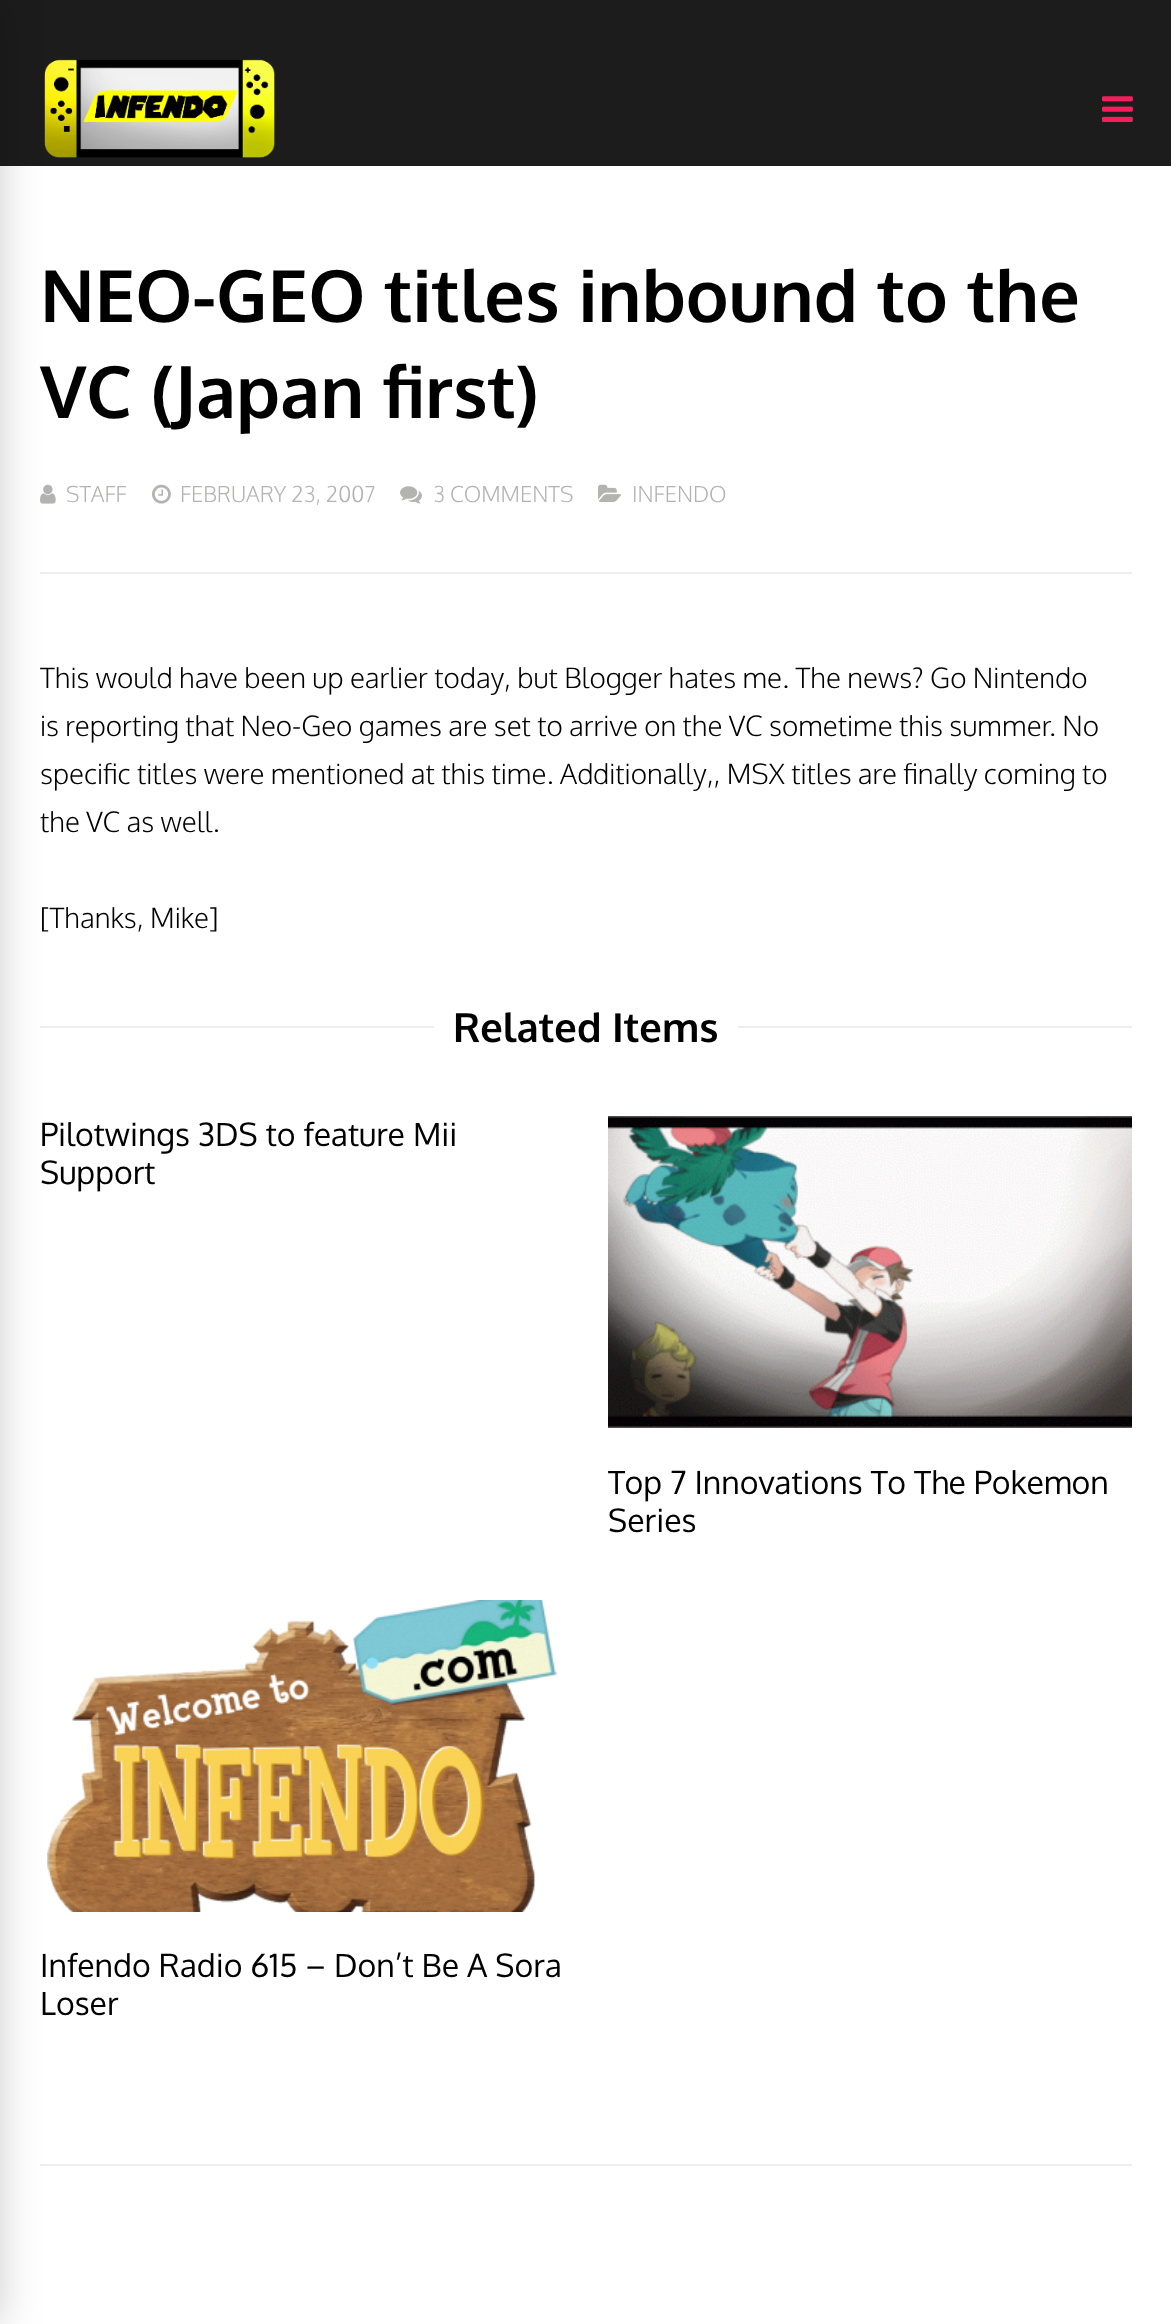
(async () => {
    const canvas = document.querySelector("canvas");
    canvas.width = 1171;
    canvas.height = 2324;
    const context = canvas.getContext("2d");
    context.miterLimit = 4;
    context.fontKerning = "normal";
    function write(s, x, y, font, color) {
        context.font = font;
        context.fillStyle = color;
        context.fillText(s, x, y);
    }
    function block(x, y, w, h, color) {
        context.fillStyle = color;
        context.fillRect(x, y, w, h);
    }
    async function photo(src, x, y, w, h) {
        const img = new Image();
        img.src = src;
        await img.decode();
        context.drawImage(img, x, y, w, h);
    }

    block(0, 0, 1171, 2324, "rgb(255, 255, 255)");
    block(0, 0, 1171, 166, "rgb(28, 28, 28)");
    await photo("media/1.png", 44, 59, 231, 99);
    block(40, 572, 1092, 2, "rgb(238, 238, 238)");
    await photo("media/3.png", 40, 484, 16, 20);
    block(40, 1026, 1092, 2, "rgb(238, 238, 238)");
    await photo("media/8.png", 47, 1600, 511, 312);
    block(40, 2164, 1092, 2, "rgb(238, 238, 238)");
    context.fillStyle = "rgba(0, 0, 0, 0.2)";
    context.filter = "blur(20px)";
    context.beginPath();
    context.rect(-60, 0, 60, 2324);
    context.fill();
    context.filter = "none";
    await photo("media/2.png", 1102, 96, 31, 26);
    write("NEO-GEO titles inbound to the", 40, 322, "bold 72px Oxygen", "rgb(0, 0, 0)");
    write("VC (Japan first)", 40, 418, "bold 72px Oxygen", "rgb(0, 0, 0)");
    write("STAFF", 66, 502, "300 22px Oxygen", "rgb(179, 179, 177)");
    await photo("media/4.png", 152, 484, 19, 20);
    write("FEBRUARY 23, 2007", 180, 502, "300 22px Oxygen", "rgb(179, 179, 177)");
    await photo("media/5.png", 400, 486, 22, 18);
    write("3 COMMENTS", 433, 502, "300 22px Oxygen", "rgb(179, 179, 177)");
    await photo("media/6.png", 598, 484, 23, 18);
    write("INFENDO", 632, 502, "300 22px Oxygen", "rgb(179, 179, 177)");
    write("This would have been up earlier today, but Blogger hates me. The news? Go Nintendo", 40, 688, "300 28px Oxygen", "rgb(0, 0, 0)");
    write("is reporting that Neo-Geo games are set to arrive on the VC sometime this summer. No", 40, 736, "300 28px Oxygen", "rgb(0, 0, 0)");
    write("specific titles were mentioned at this time. Additionally,, MSX titles are finally coming to", 40, 784, "300 28px Oxygen", "rgb(0, 0, 0)");
    write("the VC as well.", 40, 832, "300 28px Oxygen", "rgb(0, 0, 0)");
    write("[Thanks, Mike]", 40, 928, "300 28px Oxygen", "rgb(0, 0, 0)");
    block(434, 1026, 304, 2, "rgb(255, 255, 255)");
    write("Related Items", 453, 1042, "bold 40px Oxygen", "rgb(0, 0, 0)");
    write("Pilotwings 3DS to feature Mii", 40, 1146, "32px Oxygen", "rgb(0, 0, 0)");
    write("Support", 40, 1184, "32px Oxygen", "rgb(0, 0, 0)");
    await photo("media/7.png", 608, 1116, 524, 312);
    write("Top 7 Innovations To The Pokemon", 608, 1494, "32px Oxygen", "rgb(0, 0, 0)");
    write("Series", 608, 1532, "32px Oxygen", "rgb(0, 0, 0)");
    write("Infendo Radio 615 – Don’t Be A Sora", 40, 1977, "32px Oxygen", "rgb(0, 0, 0)");
    write("Loser", 40, 2015, "32px Oxygen", "rgb(0, 0, 0)");
})();
